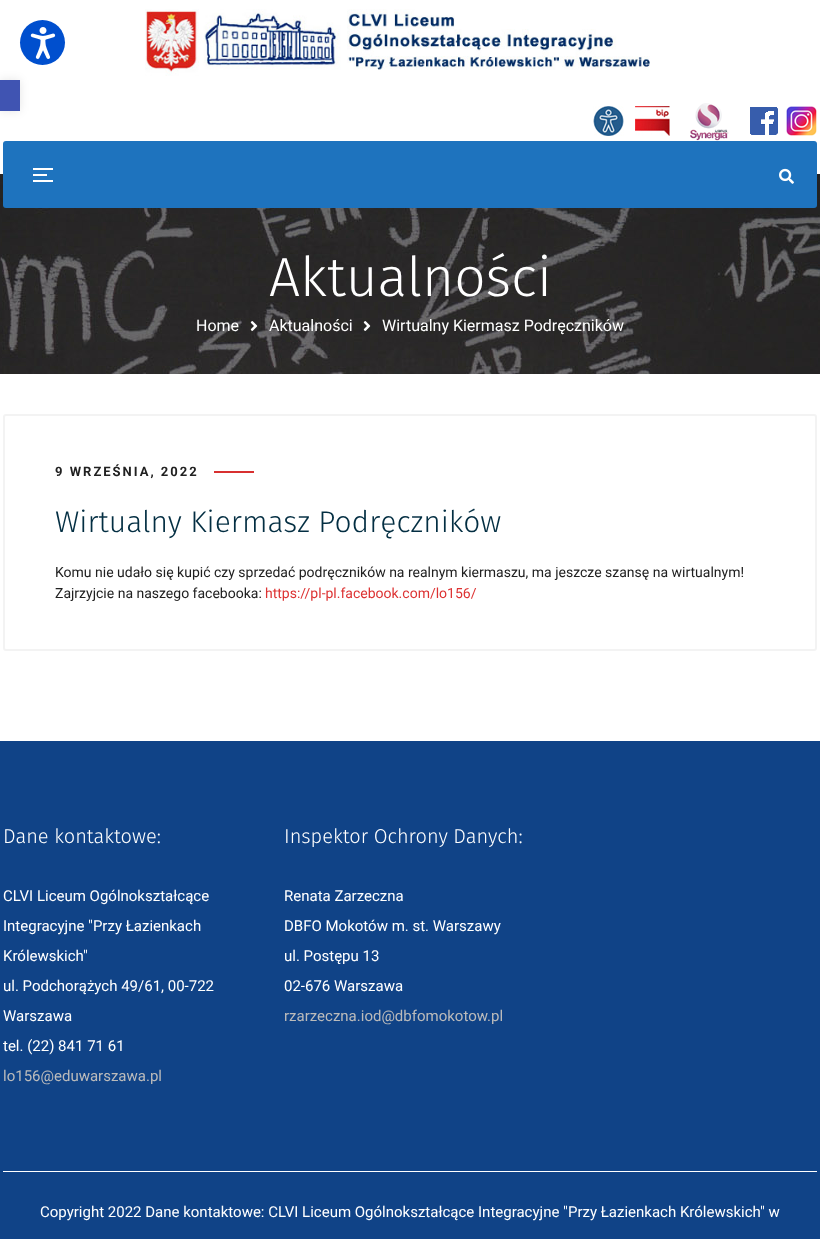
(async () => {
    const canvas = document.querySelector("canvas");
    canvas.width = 820;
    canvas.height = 1239;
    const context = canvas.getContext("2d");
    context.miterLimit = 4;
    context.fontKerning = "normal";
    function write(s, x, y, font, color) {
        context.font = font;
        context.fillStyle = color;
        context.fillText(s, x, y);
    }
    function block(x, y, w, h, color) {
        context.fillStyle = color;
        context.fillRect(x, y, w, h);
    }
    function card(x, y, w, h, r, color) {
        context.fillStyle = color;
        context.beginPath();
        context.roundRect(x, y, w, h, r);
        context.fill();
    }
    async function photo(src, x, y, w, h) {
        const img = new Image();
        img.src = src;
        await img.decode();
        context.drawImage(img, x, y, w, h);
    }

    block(0, 0, 820, 1239, "rgb(255, 255, 255)");
    context.fillStyle = "rgba(0, 0, 0, 0.1)";
    context.filter = "blur(5px)";
    context.beginPath();
    context.rect(0, 80, 20, 31);
    context.fill();
    context.filter = "none";
    context.fillStyle = "rgb(0, 79, 206)";
    context.beginPath();
    context.arc(42.5, 42.5, 22.5, 0, Math.PI * 2);
    context.fill();
    await photo("media/1.png", 30, 27, 26, 32);
    block(0, 80, 20, 31, "rgb(64, 84, 178)");
    await photo("media/2.png", 145, 9, 505, 67);
    await photo("media/3.png", 593, 106, 31, 30);
    await photo("media/4.png", 635, 106, 35, 30);
    await photo("media/5.png", 690, 103, 39, 38);
    await photo("media/6.png", 750, 107, 28, 28);
    await photo("media/7.png", 786, 106, 31, 30);
    await photo("media/9.png", 0, 174, 820, 200);
    card(3, 141, 814, 67, 3, "rgb(30, 115, 190)");
    block(33, 168, 20, 2, "rgb(255, 255, 255)");
    block(33, 174, 14, 2, "rgb(255, 255, 255)");
    block(33, 180, 20, 2, "rgb(255, 255, 255)");
    await photo("media/8.png", 779, 168, 15, 16);
    write("Aktualności", 269, 296, "300 55px Fira Sans", "rgb(255, 255, 255)");
    write("Home", 196, 331, "16px Roboto", "rgb(255, 255, 255)");
    await photo("media/10.png", 250, 321, 8, 10);
    write("Aktualności", 269, 331, "16px Roboto", "rgb(255, 255, 255)");
    await photo("media/11.png", 363, 321, 8, 10);
    write("Wirtualny Kiermasz Podręczników", 382, 331, "16px Roboto", "rgb(255, 255, 255)");
    context.beginPath();
    context.roundRect(4, 415, 812, 235, 2);
    context.strokeStyle = "rgb(243, 243, 243)";
    context.lineWidth = 2;
    context.stroke();
    context.letterSpacing = "2px";
    write("9 WRZEŚNIA, 2022", 55, 476, "bold 13px Roboto", "rgb(33, 33, 33)");
    block(214, 471, 40, 2, "rgb(216, 48, 48)");
    context.letterSpacing = "0px";
    write("Wirtualny Kiermasz Podręczników", 55, 532, "300 30px Fira Sans", "rgb(3, 46, 66)");
    write("Komu nie udało się kupić czy sprzedać podręczników na realnym kiermaszu, ma jeszcze szansę na wirtualnym!", 55, 577, "14px Roboto", "rgb(33, 33, 33)");
    write("Zajrzyjcie na naszego facebooka:", 55, 598, "14px Roboto", "rgb(33, 33, 33)");
    write("https://pl-pl.facebook.com/lo156/", 265, 598, "14px Roboto", "rgb(221, 51, 51)");
    block(0, 741, 820, 498, "rgb(16, 67, 135)");
    write("Dane kontaktowe:", 3, 843, "300 20px Fira Sans", "rgb(255, 255, 255)");
    write("CLVI Liceum Ogólnokształcące", 3, 901, "15px Roboto", "rgb(255, 255, 255)");
    write("Integracyjne \"Przy Łazienkach", 3, 931, "15px Roboto", "rgb(255, 255, 255)");
    write("Królewskich\"", 3, 961, "15px Roboto", "rgb(255, 255, 255)");
    write("ul. Podchorążych 49/61, 00-722", 3, 991, "15px Roboto", "rgb(255, 255, 255)");
    write("Warszawa", 3, 1021, "15px Roboto", "rgb(255, 255, 255)");
    write("tel. (22) 841 71 61", 3, 1051, "15px Roboto", "rgb(255, 255, 255)");
    write("lo156@eduwarszawa.pl", 3, 1081, "15px Roboto", "rgb(187, 187, 187)");
    write("Inspektor Ochrony Danych:", 284, 843, "300 20px Fira Sans", "rgb(255, 255, 255)");
    write("Renata Zarzeczna", 284, 901, "15px Roboto", "rgb(255, 255, 255)");
    write("DBFO Mokotów m. st. Warszawy", 284, 931, "15px Roboto", "rgb(255, 255, 255)");
    write("ul. Postępu 13", 284, 961, "15px Roboto", "rgb(255, 255, 255)");
    write("02-676 Warszawa", 284, 991, "15px Roboto", "rgb(255, 255, 255)");
    write("rzarzeczna.iod@dbfomokotow.pl", 284, 1021, "15px Roboto", "rgb(187, 187, 187)");
    block(3, 1171, 814, 1, "rgb(255, 255, 255)");
    write("Copyright 2022 Dane kontaktowe: CLVI Liceum Ogólnokształcące Integracyjne \"Przy Łazienkach Królewskich\" w", 40, 1217, "15px Roboto", "rgb(255, 255, 255)");
})();
